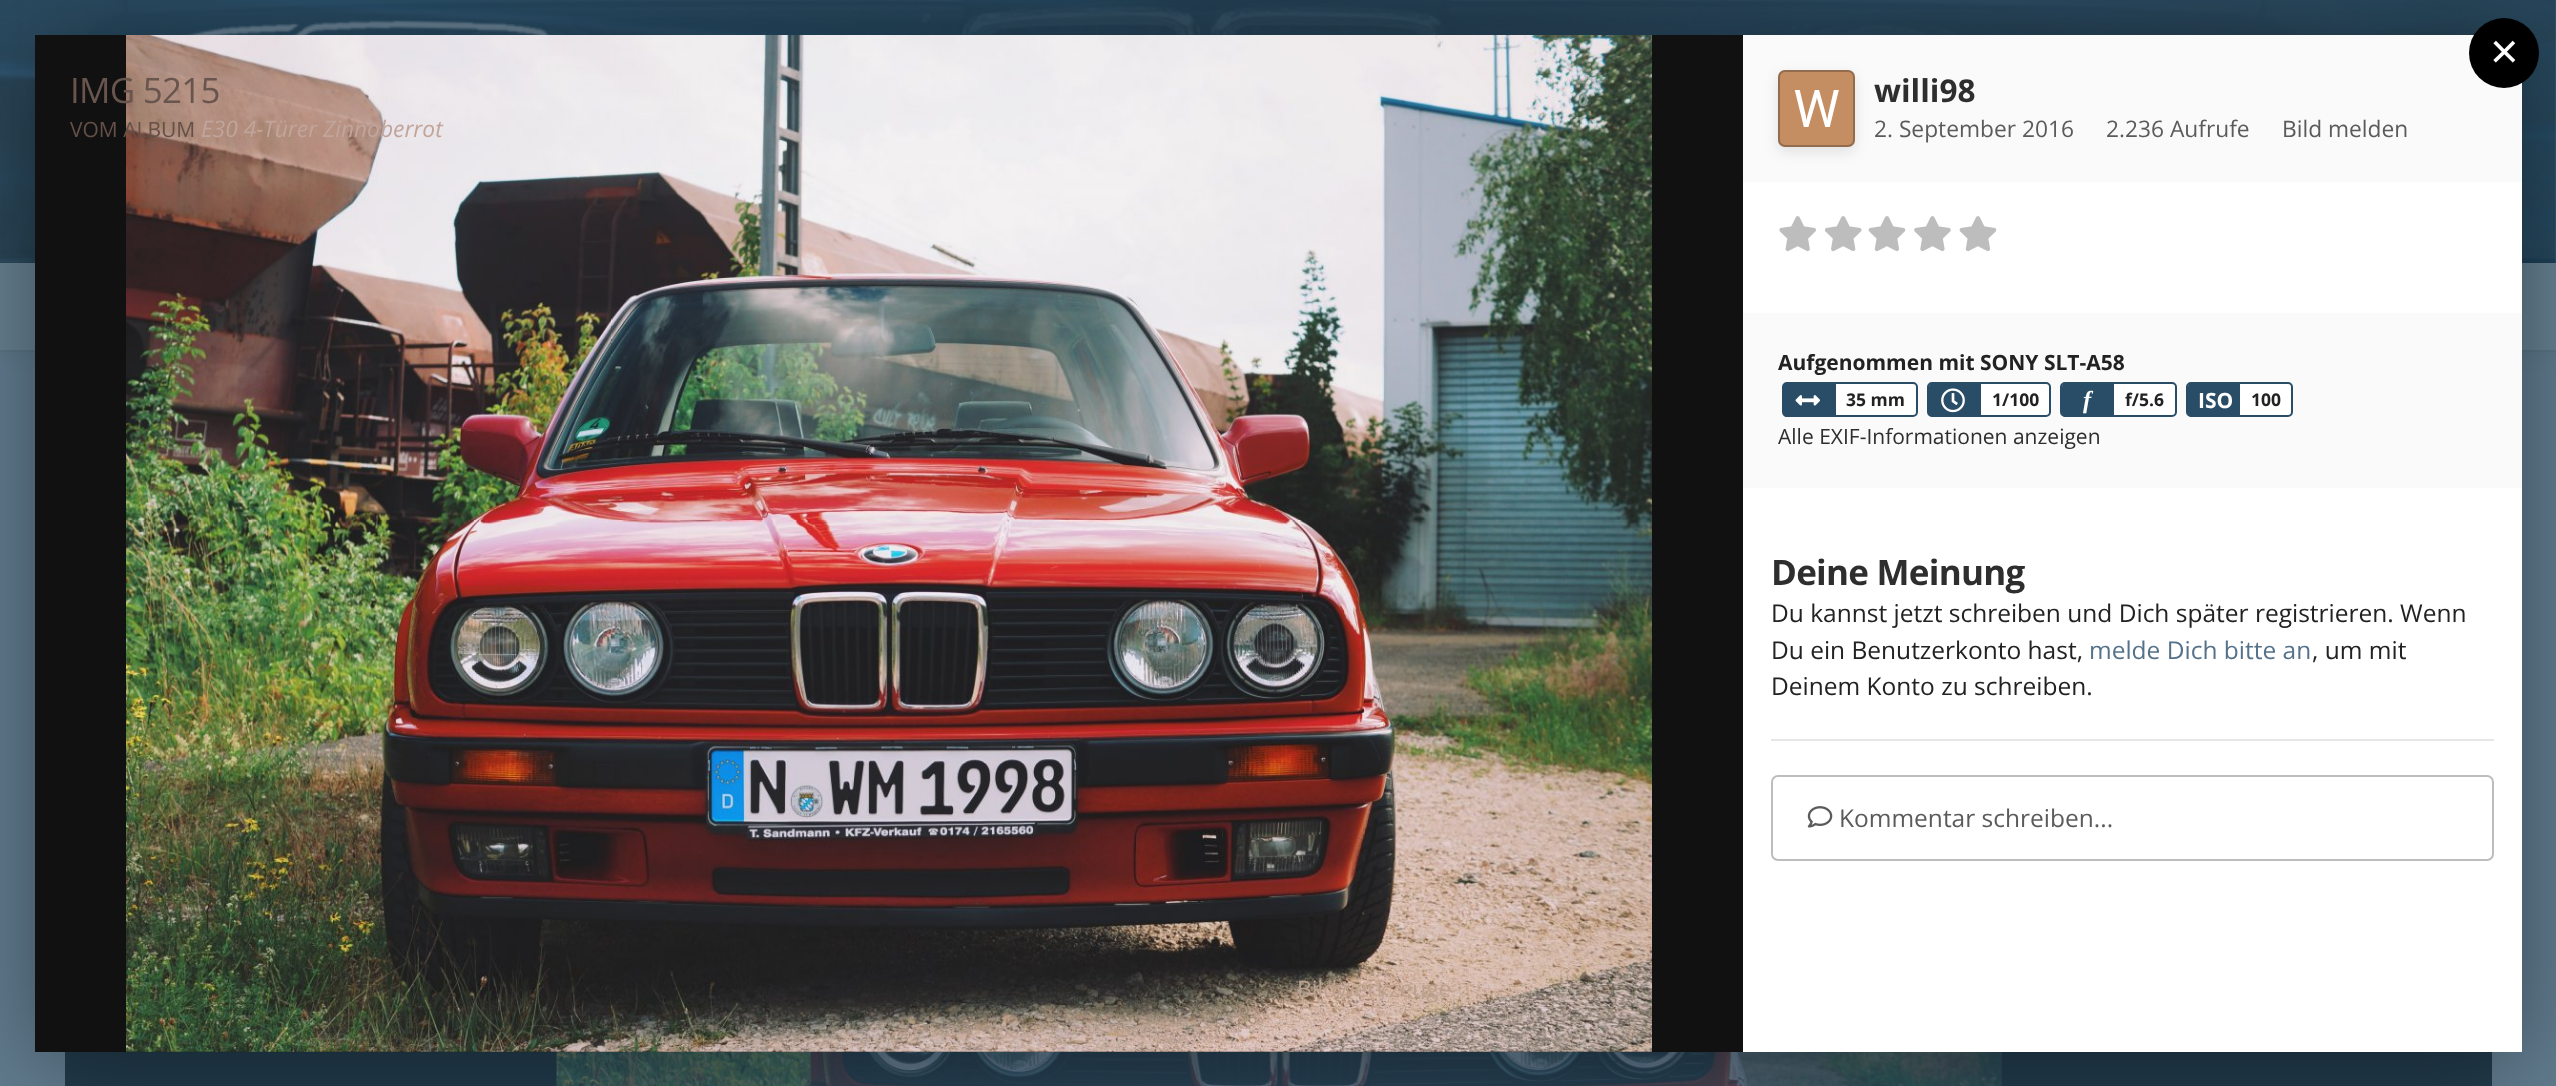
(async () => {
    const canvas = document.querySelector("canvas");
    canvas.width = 2556;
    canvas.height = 1086;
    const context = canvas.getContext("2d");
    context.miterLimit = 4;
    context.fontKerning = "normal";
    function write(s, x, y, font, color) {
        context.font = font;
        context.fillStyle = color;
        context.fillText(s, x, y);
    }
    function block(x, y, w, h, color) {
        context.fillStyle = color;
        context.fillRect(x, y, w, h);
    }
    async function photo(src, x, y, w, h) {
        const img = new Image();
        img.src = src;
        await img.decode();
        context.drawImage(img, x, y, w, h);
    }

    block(0, 0, 2556, 1086, "rgb(255, 255, 255)");
    await photo("media/1.png", 0, 0, 2556, 263);
    await photo("media/2.png", 184, 19, 367, 16);
    block(0, 352, 2556, 734, "rgb(97, 124, 143)");
    context.fillStyle = "rgb(94, 121, 139)";
    context.beginPath();
    context.moveTo(0, 350);
    context.lineTo(0, 352);
    context.lineTo(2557, 352);
    context.lineTo(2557, 264);
    context.lineTo(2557, 350);
    context.closePath();
    context.fill();
    context.fillStyle = "rgba(29, 54, 71, 0.1)";
    context.filter = "blur(9px)";
    context.beginPath();
    context.rect(0, 266, 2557, 88);
    context.fill();
    context.filter = "none";
    block(0, 263, 2556, 87, "rgb(102, 128, 145)");
    block(65, 1052, 2427, 34, "rgb(34, 59, 76)");
    await photo("media/12.png", 556, 1052, 1446, 34);
    context.fillStyle = "rgba(0, 0, 0, 0.4)";
    context.filter = "blur(48px)";
    context.beginPath();
    context.rect(35, 44, 2487, 1017);
    context.fill();
    context.filter = "none";
    block(1743, 35, 779, 147, "rgb(250, 250, 250)");
    context.fillStyle = "rgb(0, 0, 0)";
    context.beginPath();
    context.arc(2504, 53, 35, 0, Math.PI * 2);
    context.fill();
    write("×", 2490, 68, "49px Liberation Sans", "rgb(255, 255, 255)");
    block(35, 35, 1708, 1017, "rgb(17, 17, 17)");
    await photo("media/3.png", 126, 35, 1526, 1017);
    context.letterSpacing = "-0.75px";
    write("IMG 5215", 70, 103, "35px Open Sans", "rgb(104, 85, 77)");
    context.letterSpacing = "0px";
    write("VOM ALBUM", 70, 137, "21px Open Sans", "rgb(100, 80, 71)");
    write("E30 4-Türer Zinnoberrot", 201, 137, "italic 22.75px Open Sans", "rgb(193, 165, 155)");
    write("0", 1578, 106, "bold 17.5px Open Sans", "rgb(133, 151, 143)");
    write("Bildwerkzeuge", 1297, 997, "22.75px Open Sans", "rgb(188, 161, 143)");
    block(1743, 182, 779, 870, "rgb(255, 255, 255)");
    await photo("media/4.png", 1778, 70, 77, 77);
    context.save();
    context.beginPath();
    context.moveTo(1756, 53);
    context.lineTo(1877, 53);
    context.lineTo(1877, 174);
    context.lineTo(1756, 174);
    context.closePath();
    context.moveTo(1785, 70);
    context.lineTo(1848, 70);
    context.bezierCurveTo(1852, 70, 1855, 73, 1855, 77);
    context.lineTo(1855, 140);
    context.bezierCurveTo(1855, 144, 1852, 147, 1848, 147);
    context.lineTo(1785, 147);
    context.bezierCurveTo(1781, 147, 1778, 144, 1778, 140);
    context.lineTo(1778, 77);
    context.bezierCurveTo(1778, 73, 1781, 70, 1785, 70);
    context.closePath();
    context.clip("evenodd");
    context.fillStyle = "rgba(0, 0, 0, 0.1)";
    context.filter = "blur(7px)";
    context.beginPath();
    context.roundRect(1778, 75, 77, 77, 7);
    context.fill();
    context.filter = "none";
    context.restore();
    context.beginPath();
    context.roundRect(1779, 71, 75, 75, 6);
    context.strokeStyle = "rgba(34, 34, 34, 0.3)";
    context.lineWidth = 2;
    context.stroke();
    write("willi98", 1874, 102, "bold 31.5px Open Sans", "rgb(46, 46, 46)");
    write("2. September 2016", 1874, 137, "22.75px Open Sans", "rgb(91, 91, 91)");
    write("2.236 Aufrufe", 2106, 137, "22.75px Open Sans", "rgb(91, 91, 91)");
    write("Bild melden", 2282, 137, "22.75px Open Sans", "rgb(91, 91, 91)");
    await photo("media/5.png", 1779, 216, 37, 36);
    await photo("media/6.png", 1825, 216, 37, 36);
    await photo("media/7.png", 1868, 216, 38, 36);
    await photo("media/8.png", 1914, 216, 37, 36);
    await photo("media/7.png", 1959, 216, 38, 36);
    block(1743, 313, 779, 175, "rgb(250, 250, 250)");
    write("Aufgenommen mit SONY SLT-A58", 1778, 370, "bold 21px Open Sans", "rgb(34, 34, 34)");
    context.fillStyle = "rgb(255, 255, 255)";
    context.beginPath();
    context.roundRect(1783, 383, 134, 33, 4);
    context.fill();
    context.strokeStyle = "rgb(41, 77, 102)";
    context.stroke();
    context.fillStyle = "rgb(41, 77, 102)";
    context.beginPath();
    context.roundRect(1783, 383, 53, 34, [4, 0, 0, 4]);
    context.fill();
    await photo("media/9.png", 1795, 395, 25, 11);
    write("35 mm", 1846, 406, "bold 17.5px Open Sans", "rgb(34, 34, 34)");
    context.fillStyle = "rgb(255, 255, 255)";
    context.beginPath();
    context.roundRect(1928, 383, 122, 33, 4);
    context.fill();
    context.stroke();
    context.fillStyle = "rgb(41, 77, 102)";
    context.beginPath();
    context.roundRect(1929, 383, 52, 34, [4, 0, 0, 4]);
    context.fill();
    await photo("media/10.png", 1941, 388, 24, 25);
    write("1/100", 1992, 406, "bold 17.5px Open Sans", "rgb(34, 34, 34)");
    context.fillStyle = "rgb(255, 255, 255)";
    context.beginPath();
    context.roundRect(2061, 383, 115, 33, 4);
    context.fill();
    context.stroke();
    context.fillStyle = "rgb(41, 77, 102)";
    context.beginPath();
    context.roundRect(2062, 383, 52, 34, [4, 0, 0, 4]);
    context.fill();
    write("f", 2083, 408, "italic bold 24.5px Liberation Serif", "rgb(255, 255, 255)");
    write("f/5.6", 2125, 406, "bold 17.5px Open Sans", "rgb(34, 34, 34)");
    context.fillStyle = "rgb(255, 255, 255)";
    context.beginPath();
    context.roundRect(2187, 383, 105, 33, 4);
    context.fill();
    context.stroke();
    context.fillStyle = "rgb(41, 77, 102)";
    context.beginPath();
    context.roundRect(2188, 383, 52, 34, [4, 0, 0, 4]);
    context.fill();
    write("ISO", 2198, 408, "bold 21px Open Sans", "rgb(255, 255, 255)");
    write("100", 2251, 406, "bold 17.5px Open Sans", "rgb(34, 34, 34)");
    write("Alle EXIF-Informationen anzeigen", 1778, 444, "21px Open Sans", "rgb(46, 46, 46)");
    block(1771, 739, 723, 2, "rgb(230, 230, 230)");
    context.letterSpacing = "-0.75px";
    write("Deine Meinung", 1771, 585, "bold 35px Open Sans", "rgb(46, 46, 46)");
    context.letterSpacing = "0px";
    write("Du kannst jetzt schreiben und Dich später registrieren. Wenn", 1771, 622, "24.5px Open Sans", "rgb(34, 34, 34)");
    write("Du ein Benutzerkonto hast,", 1771, 659, "24.5px Open Sans", "rgb(34, 34, 34)");
    write("melde Dich bitte an", 2089, 659, "24.5px Open Sans", "rgb(85, 114, 139)");
    write(", um mit", 2312, 659, "24.5px Open Sans", "rgb(34, 34, 34)");
    write("Deinem Konto zu schreiben.", 1771, 695, "24.5px Open Sans", "rgb(34, 34, 34)");
    context.beginPath();
    context.roundRect(1772, 776, 721, 84, 6);
    context.strokeStyle = "rgb(189, 189, 189)";
    context.stroke();
    await photo("media/11.png", 1807, 806, 26, 22);
    write("Kommentar schreiben...", 1839, 827, "24.5px Open Sans", "rgb(91, 91, 91)");
})();
